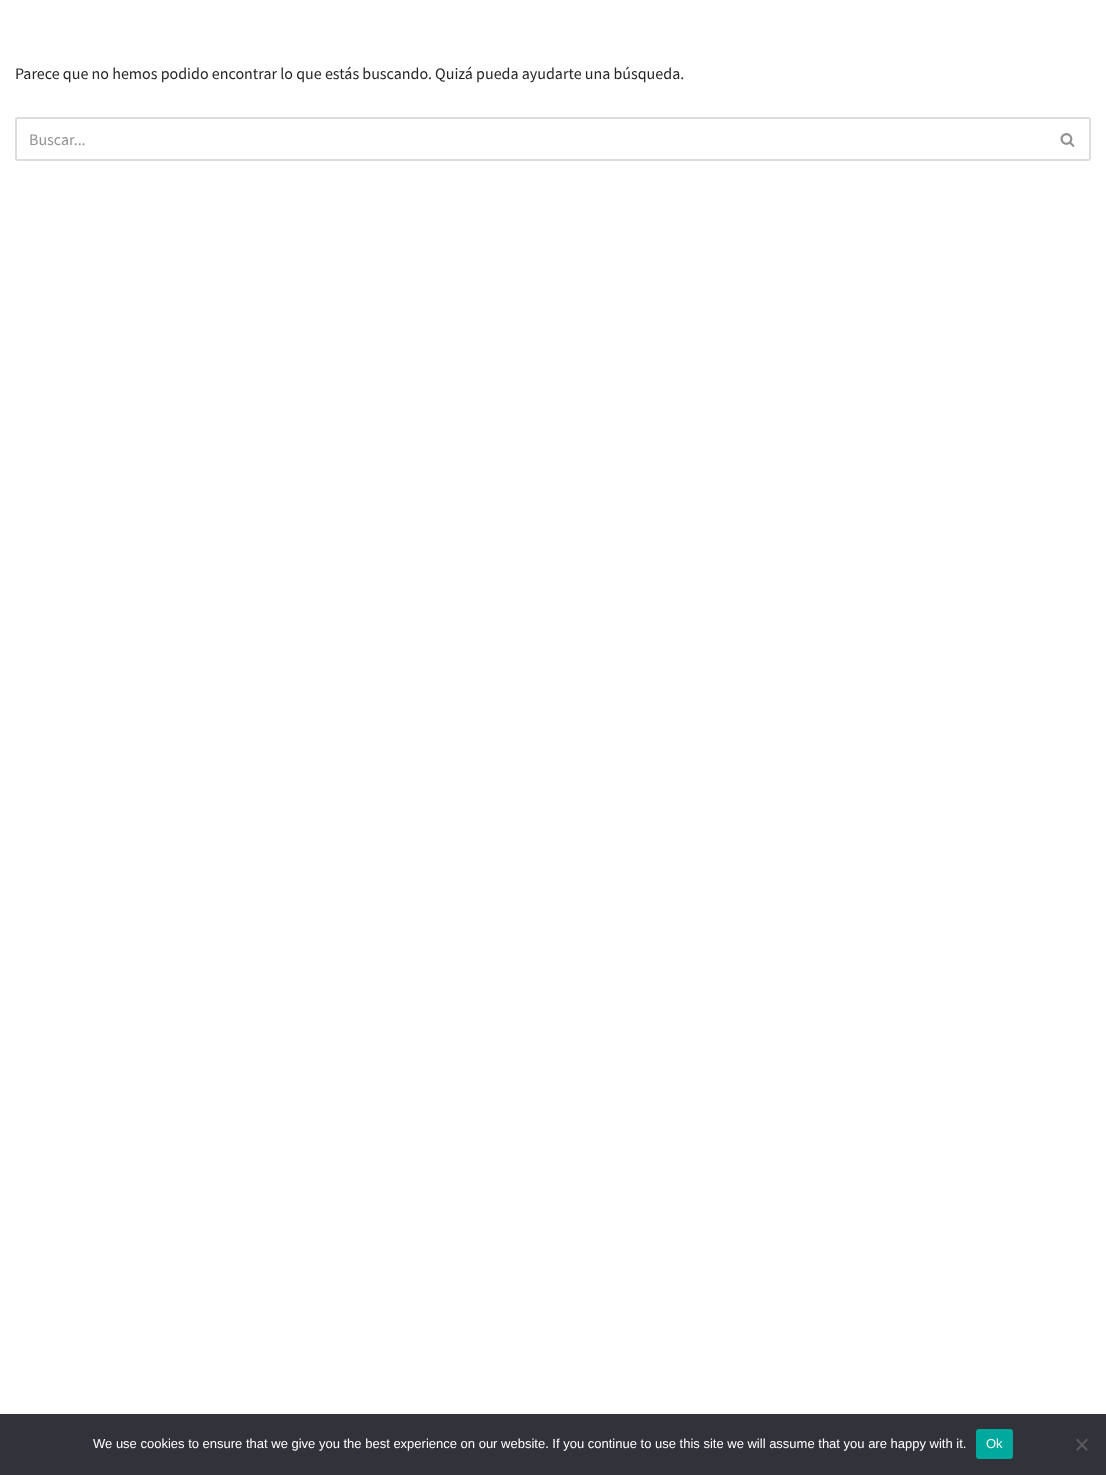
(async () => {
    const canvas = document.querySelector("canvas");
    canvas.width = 1106;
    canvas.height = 1475;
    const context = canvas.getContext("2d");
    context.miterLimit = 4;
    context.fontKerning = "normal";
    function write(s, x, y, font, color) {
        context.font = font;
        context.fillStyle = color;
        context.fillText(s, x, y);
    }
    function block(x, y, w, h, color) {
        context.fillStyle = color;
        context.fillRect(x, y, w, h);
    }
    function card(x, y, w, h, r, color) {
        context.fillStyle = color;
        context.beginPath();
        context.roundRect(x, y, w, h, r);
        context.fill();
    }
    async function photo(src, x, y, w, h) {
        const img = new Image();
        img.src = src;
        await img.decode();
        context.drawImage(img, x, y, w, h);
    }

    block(0, 0, 1106, 1475, "rgb(255, 255, 255)");
    write("Parece que no hemos podido encontrar lo que estás buscando. Quizá pueda ayudarte una búsqueda.", 15, 79, "16px Source Sans Pro", "rgb(39, 38, 38)");
    context.fillStyle = "rgb(221, 221, 221)";
    context.beginPath();
    context.moveTo(18, 117);
    context.lineTo(1046, 117);
    context.lineTo(1046, 161);
    context.lineTo(18, 161);
    context.bezierCurveTo(16, 161, 15, 160, 15, 158);
    context.lineTo(15, 120);
    context.bezierCurveTo(15, 118, 16, 117, 18, 117);
    context.closePath();
    context.moveTo(18, 119);
    context.lineTo(1046, 119);
    context.lineTo(1046, 159);
    context.lineTo(18, 159);
    context.bezierCurveTo(17, 159, 17, 159, 17, 158);
    context.lineTo(17, 120);
    context.bezierCurveTo(17, 119, 17, 119, 18, 119);
    context.closePath();
    context.fill("evenodd");
    write("Buscar...", 29, 145, "16px Source Sans Pro", "rgb(147, 147, 147)");
    context.fillStyle = "rgb(221, 221, 221)";
    context.beginPath();
    context.moveTo(1046, 117);
    context.lineTo(1088, 117);
    context.bezierCurveTo(1090, 117, 1091, 118, 1091, 120);
    context.lineTo(1091, 158);
    context.bezierCurveTo(1091, 160, 1090, 161, 1088, 161);
    context.lineTo(1046, 161);
    context.closePath();
    context.moveTo(1046, 119);
    context.lineTo(1088, 119);
    context.bezierCurveTo(1089, 119, 1089, 119, 1089, 120);
    context.lineTo(1089, 158);
    context.bezierCurveTo(1089, 159, 1089, 159, 1088, 159);
    context.lineTo(1046, 159);
    context.closePath();
    context.fill("evenodd");
    await photo("media/1.png", 1060, 133, 15, 14);
    block(0, 1414, 1106, 61, "rgb(50, 50, 58)");
    write("We use cookies to ensure that we give you the best experience on our website. If you continue to use this site we will assume that you are happy with it.", 93, 1448, "13px Liberation Sans", "rgb(255, 255, 255)");
    card(976, 1429, 37, 30, 3, "rgb(0, 169, 157)");
    write("Ok", 986, 1448, "13px Liberation Sans", "rgb(255, 255, 255)");
    context.fillStyle = "rgb(89, 89, 93)";
    context.beginPath();
    context.moveTo(1086.5, 1438.5);
    context.lineTo(1088, 1440);
    context.lineTo(1077.5, 1451);
    context.lineTo(1076, 1449.5);
    context.closePath();
    context.fill();
    context.beginPath();
    context.moveTo(1076, 1440);
    context.lineTo(1077.5, 1438.5);
    context.lineTo(1088, 1449.5);
    context.lineTo(1086.5, 1451);
    context.closePath();
    context.fill();
})();
